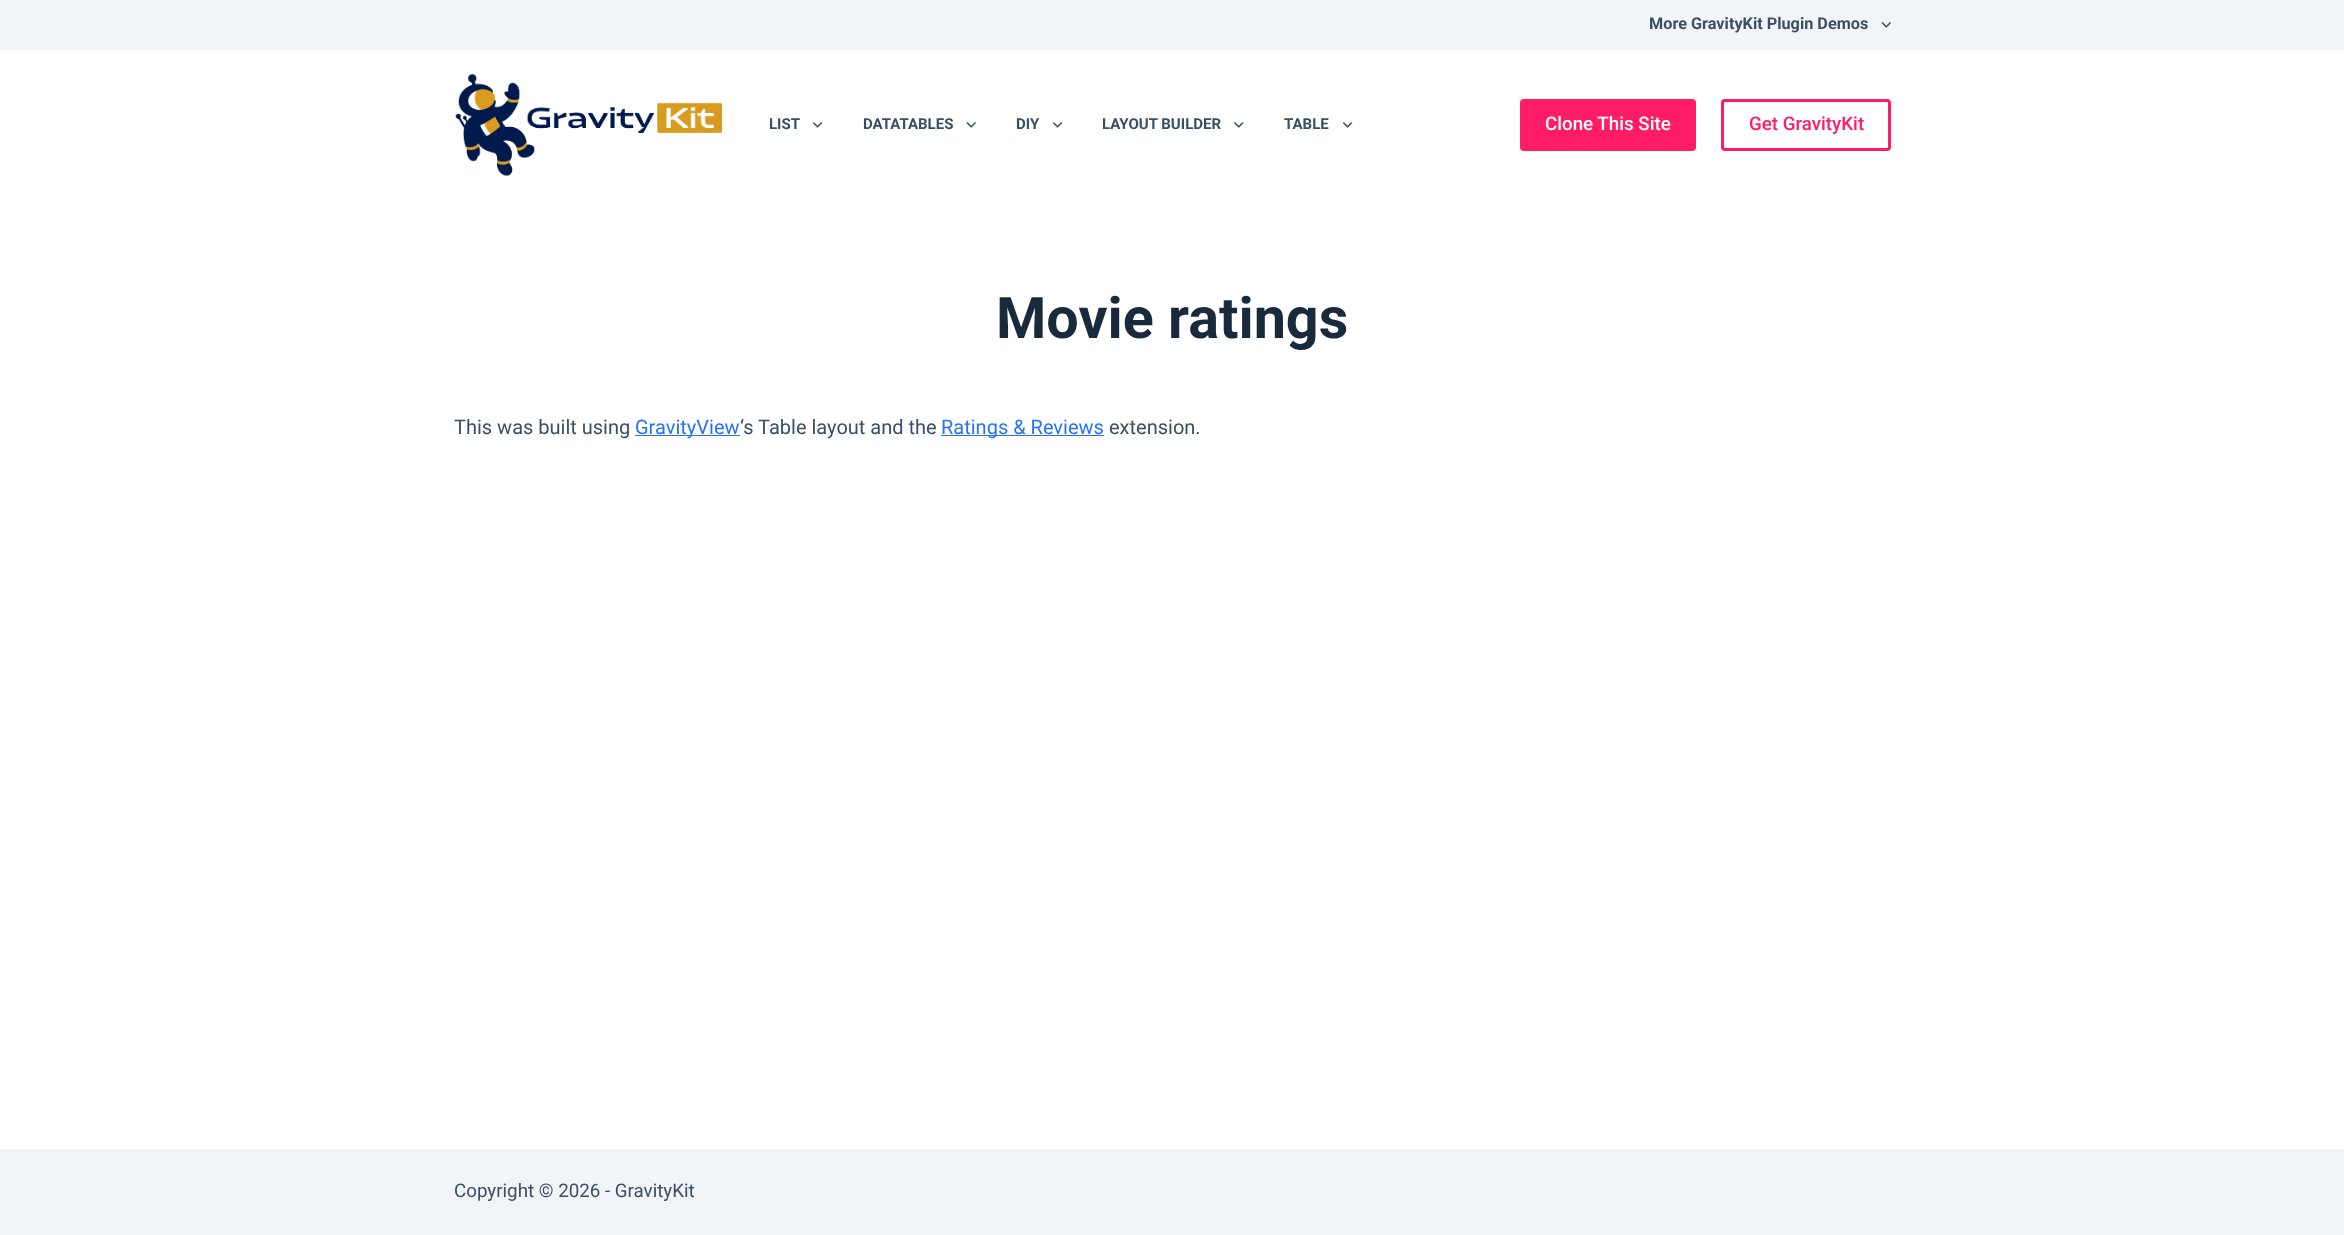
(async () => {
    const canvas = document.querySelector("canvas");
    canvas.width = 2344;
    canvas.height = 1235;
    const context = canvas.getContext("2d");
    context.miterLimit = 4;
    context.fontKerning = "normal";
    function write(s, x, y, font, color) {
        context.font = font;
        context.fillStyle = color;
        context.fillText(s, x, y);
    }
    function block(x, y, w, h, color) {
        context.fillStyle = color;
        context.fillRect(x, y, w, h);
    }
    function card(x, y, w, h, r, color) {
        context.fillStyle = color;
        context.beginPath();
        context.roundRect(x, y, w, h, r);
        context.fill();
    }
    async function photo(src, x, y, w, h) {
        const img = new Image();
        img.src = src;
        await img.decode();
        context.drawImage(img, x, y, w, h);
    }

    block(0, 0, 2344, 1235, "rgb(255, 255, 255)");
    block(0, 0, 2344, 50, "rgb(242, 245, 247)");
    write("More GravityKit Plugin Demos", 1649, 29, "bold 16.25px Roboto", "rgb(58, 79, 102)");
    await photo("media/1.png", 1881, 22, 10, 6);
    await photo("media/2.png", 455, 73, 268, 104);
    write("LIST", 769, 129, "bold 15px Roboto", "rgb(58, 79, 102)");
    await photo("media/3.png", 813, 122, 10, 6);
    write("DATATABLES", 863, 129, "bold 15px Roboto", "rgb(58, 79, 102)");
    await photo("media/4.png", 966, 122, 10, 6);
    write("DIY", 1016, 129, "bold 15px Roboto", "rgb(58, 79, 102)");
    await photo("media/3.png", 1053, 122, 10, 6);
    write("LAYOUT BUILDER", 1102, 129, "bold 15px Roboto", "rgb(58, 79, 102)");
    await photo("media/5.png", 1234, 122, 10, 6);
    write("TABLE", 1284, 129, "bold 15px Roboto", "rgb(58, 79, 102)");
    await photo("media/3.png", 1343, 122, 10, 6);
    card(1520, 99, 176, 52, 4, "rgb(255, 28, 103)");
    write("Clone This Site", 1545, 130, "500 18.75px Roboto", "rgb(255, 255, 255)");
    context.beginPath();
    context.roundRect(1722.5, 100.5, 167, 49, 2.5);
    context.strokeStyle = "rgb(255, 28, 103)";
    context.lineWidth = 3;
    context.stroke();
    write("Get GravityKit", 1749, 130, "500 18.75px Roboto", "rgb(255, 28, 103)");
    write("Movie ratings", 996, 338, "bold 57.5px Roboto", "rgb(25, 42, 61)");
    write("This was built using", 454, 434, "20px Roboto", "rgb(58, 79, 102)");
    block(635, 435, 105, 1, "rgb(40, 114, 250)");
    write("GravityView", 635, 434, "20px Roboto", "rgb(40, 114, 250)");
    write("‘s Table layout and the", 740, 434, "20px Roboto", "rgb(58, 79, 102)");
    block(941, 435, 163, 1, "rgb(40, 114, 250)");
    write("Ratings & Reviews", 941, 434, "20px Roboto", "rgb(40, 114, 250)");
    write("extension.", 1109, 434, "20px Roboto", "rgb(58, 79, 102)");
    block(0, 1149, 2344, 86, "rgb(242, 245, 247)");
    write("Copyright © 2026 - GravityKit", 454, 1197, "18.75px Roboto", "rgb(58, 79, 102)");
})();
